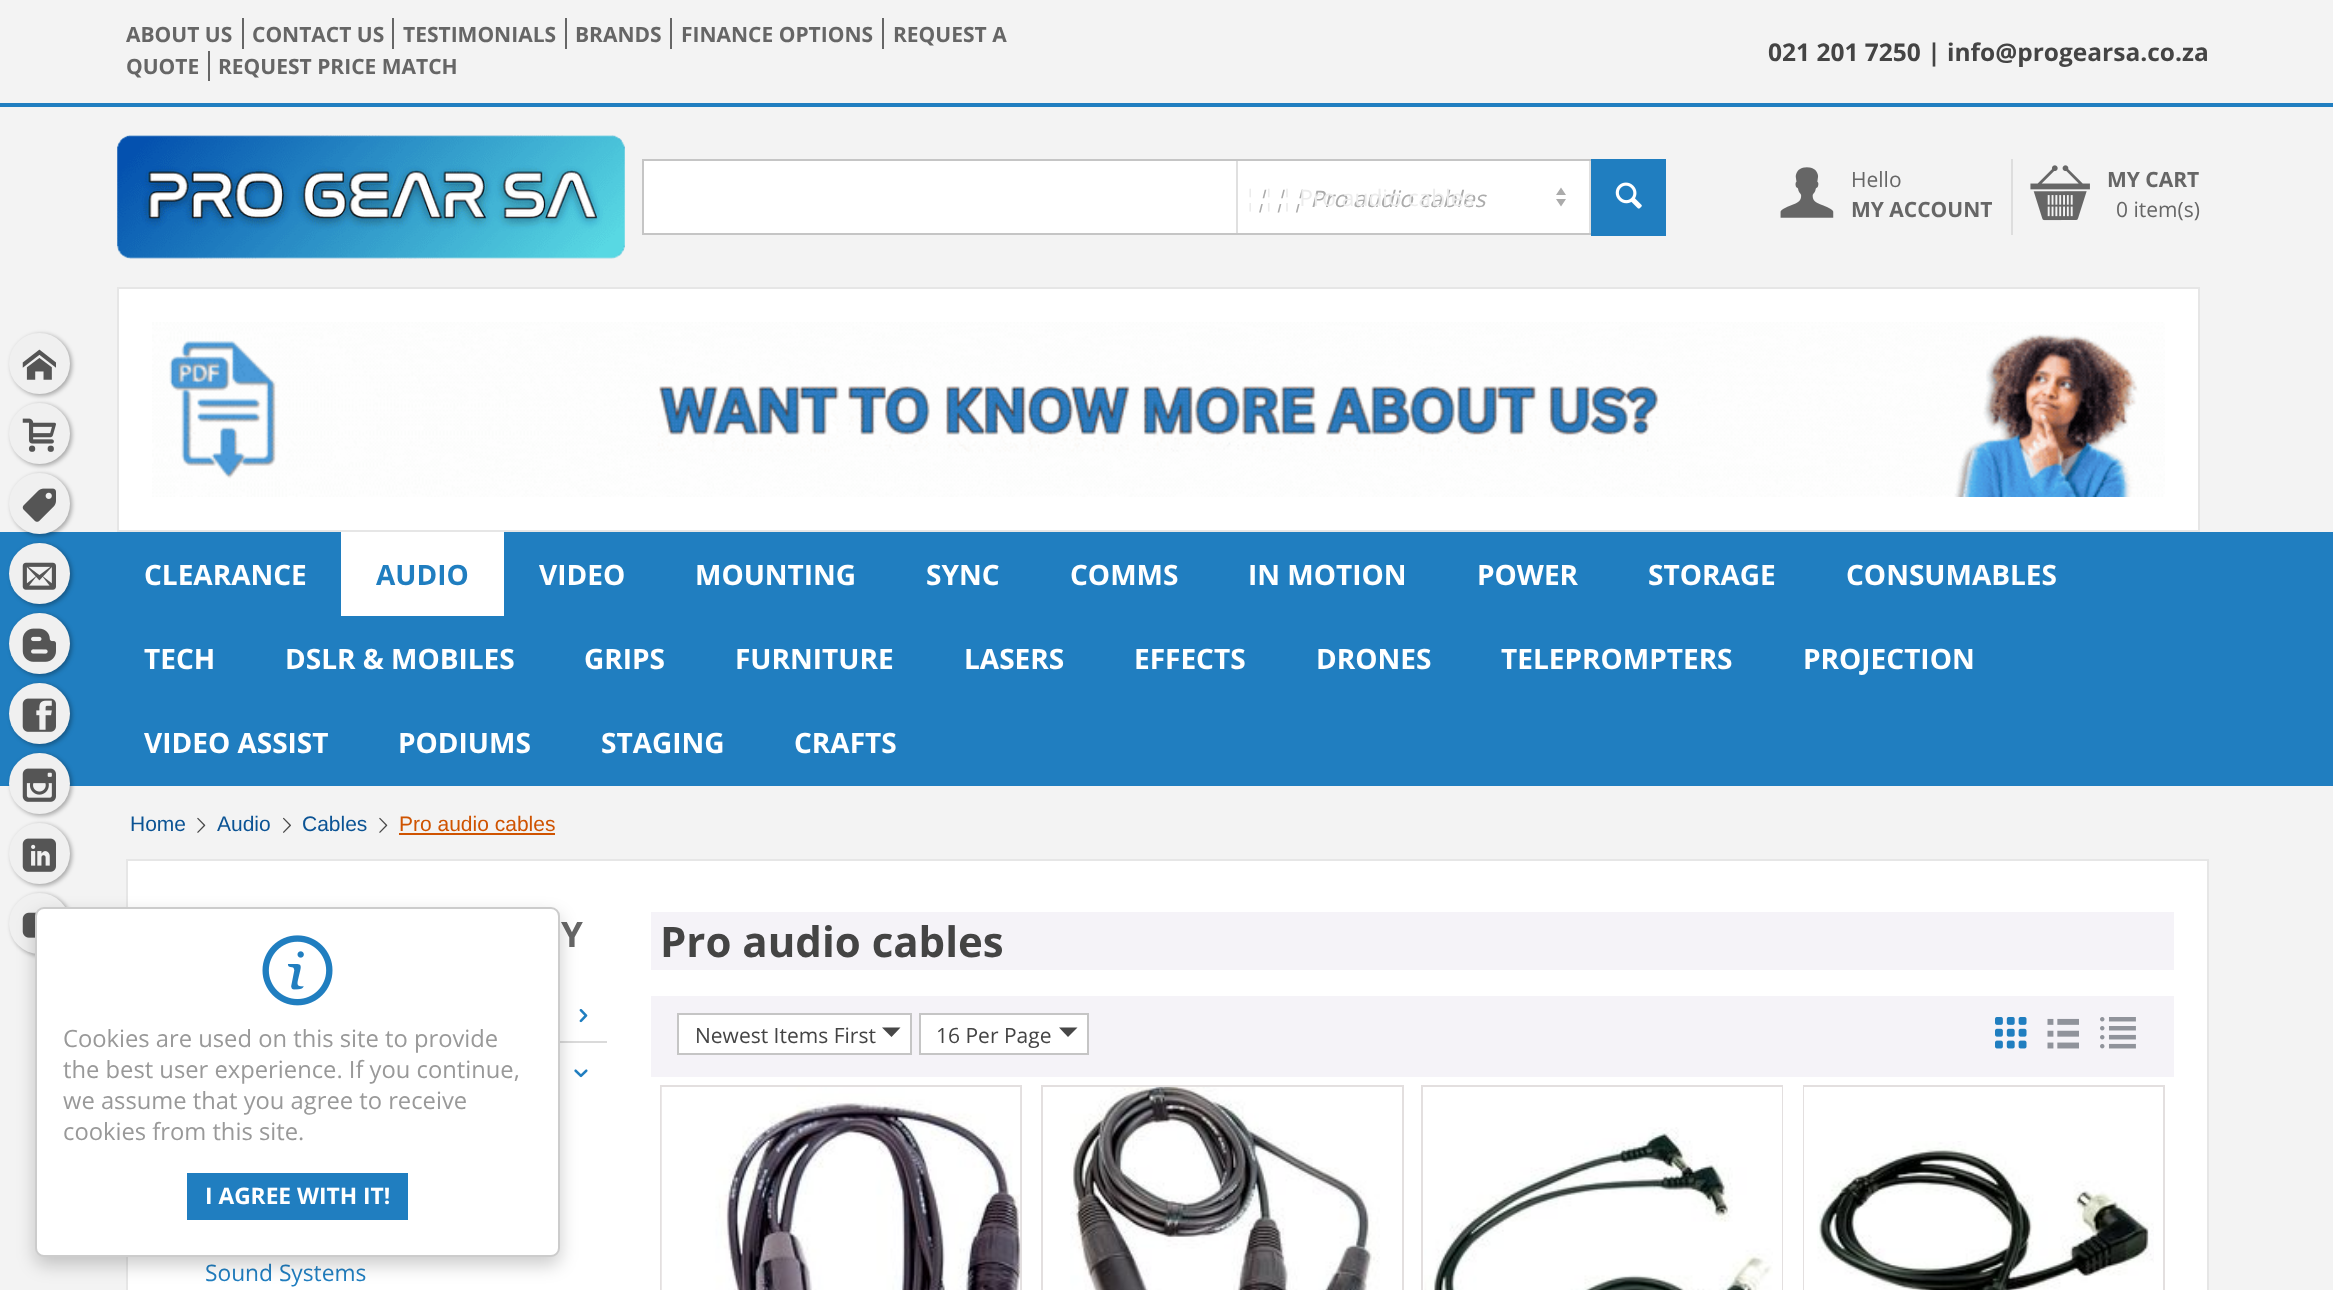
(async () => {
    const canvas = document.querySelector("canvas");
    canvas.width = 2333;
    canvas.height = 1290;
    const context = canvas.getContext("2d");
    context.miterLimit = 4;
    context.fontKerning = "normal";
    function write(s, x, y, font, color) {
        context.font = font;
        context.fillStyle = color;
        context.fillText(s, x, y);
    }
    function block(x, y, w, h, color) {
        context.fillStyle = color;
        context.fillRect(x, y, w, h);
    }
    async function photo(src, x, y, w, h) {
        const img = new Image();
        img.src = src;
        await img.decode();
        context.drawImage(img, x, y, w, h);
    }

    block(0, 0, 2333, 1290, "rgb(243, 243, 243)");
    context.fillStyle = "rgba(0, 0, 0, 0.3)";
    context.filter = "blur(2px)";
    context.beginPath();
    context.roundRect(11, 334, 61, 62, 30.5);
    context.fill();
    context.filter = "none";
    context.fillStyle = "rgb(240, 240, 240)";
    context.beginPath();
    context.arc(39.5, 363.5, 30.5, 0, Math.PI * 2);
    context.fill();
    await photo("media/1.png", 22, 349, 34, 31);
    context.fillStyle = "rgba(0, 0, 0, 0.3)";
    context.filter = "blur(2px)";
    context.beginPath();
    context.roundRect(11, 404, 61, 62, 30.5);
    context.fill();
    context.filter = "none";
    context.fillStyle = "rgb(240, 240, 240)";
    context.beginPath();
    context.arc(39.5, 433.5, 30.5, 0, Math.PI * 2);
    context.fill();
    await photo("media/2.png", 22, 418, 34, 34);
    block(0, 532, 2333, 254, "rgb(32, 126, 192)");
    context.fillStyle = "rgba(0, 0, 0, 0.3)";
    context.filter = "blur(2px)";
    context.beginPath();
    context.roundRect(11, 474, 61, 62, 30.5);
    context.fill();
    context.filter = "none";
    context.fillStyle = "rgb(240, 240, 240)";
    context.beginPath();
    context.arc(39.5, 503.5, 30.5, 0, Math.PI * 2);
    context.fill();
    await photo("media/3.png", 22, 488, 34, 34);
    context.fillStyle = "rgba(0, 0, 0, 0.3)";
    context.filter = "blur(2px)";
    context.beginPath();
    context.roundRect(11, 544, 61, 62, 30.5);
    context.fill();
    context.filter = "none";
    context.fillStyle = "rgb(240, 240, 240)";
    context.beginPath();
    context.arc(39.5, 573.5, 30.5, 0, Math.PI * 2);
    context.fill();
    await photo("media/4.png", 22, 562, 34, 28);
    context.fillStyle = "rgba(0, 0, 0, 0.3)";
    context.filter = "blur(2px)";
    context.beginPath();
    context.roundRect(11, 614, 61, 62, 30.5);
    context.fill();
    context.filter = "none";
    context.fillStyle = "rgb(240, 240, 240)";
    context.beginPath();
    context.arc(39.5, 643.5, 30.5, 0, Math.PI * 2);
    context.fill();
    await photo("media/5.png", 22, 628, 34, 34);
    context.fillStyle = "rgba(0, 0, 0, 0.3)";
    context.filter = "blur(2px)";
    context.beginPath();
    context.roundRect(11, 684, 61, 62, 30.5);
    context.fill();
    context.filter = "none";
    context.fillStyle = "rgb(240, 240, 240)";
    context.beginPath();
    context.arc(39.5, 713.5, 30.5, 0, Math.PI * 2);
    context.fill();
    await photo("media/6.png", 22, 698, 34, 34);
    context.fillStyle = "rgba(0, 0, 0, 0.3)";
    context.filter = "blur(2px)";
    context.beginPath();
    context.roundRect(11, 754, 61, 62, 30.5);
    context.fill();
    context.filter = "none";
    context.fillStyle = "rgb(240, 240, 240)";
    context.beginPath();
    context.arc(39.5, 783.5, 30.5, 0, Math.PI * 2);
    context.fill();
    await photo("media/7.png", 22, 768, 34, 34);
    context.fillStyle = "rgba(0, 0, 0, 0.3)";
    context.filter = "blur(2px)";
    context.beginPath();
    context.roundRect(11, 824, 61, 62, 30.5);
    context.fill();
    context.filter = "none";
    context.fillStyle = "rgb(240, 240, 240)";
    context.beginPath();
    context.arc(39.5, 853.5, 30.5, 0, Math.PI * 2);
    context.fill();
    await photo("media/8.png", 22, 838, 34, 34);
    context.fillStyle = "rgba(0, 0, 0, 0.3)";
    context.filter = "blur(2px)";
    context.beginPath();
    context.roundRect(11, 894, 61, 62, 30.5);
    context.fill();
    context.filter = "none";
    context.fillStyle = "rgb(240, 240, 240)";
    context.beginPath();
    context.arc(39.5, 923.5, 30.5, 0, Math.PI * 2);
    context.fill();
    await photo("media/9.png", 22, 912, 14, 26);
    block(0, 103, 2333, 4, "rgb(32, 126, 192)");
    write("ABOUT US", 126, 42, "bold 21px Open Sans", "rgb(102, 102, 102)");
    block(242, 18, 2, 31, "rgb(102, 102, 102)");
    write("CONTACT US", 252, 42, "bold 21px Open Sans", "rgb(102, 102, 102)");
    block(392, 18, 2, 31, "rgb(102, 102, 102)");
    write("TESTIMONIALS", 403, 42, "bold 21px Open Sans", "rgb(102, 102, 102)");
    block(565, 18, 2, 31, "rgb(102, 102, 102)");
    write("BRANDS", 575, 42, "bold 21px Open Sans", "rgb(102, 102, 102)");
    block(670, 18, 2, 31, "rgb(102, 102, 102)");
    write("FINANCE OPTIONS", 681, 42, "bold 21px Open Sans", "rgb(102, 102, 102)");
    block(882, 18, 2, 31, "rgb(102, 102, 102)");
    write("REQUEST A", 893, 42, "bold 21px Open Sans", "rgb(102, 102, 102)");
    write("QUOTE", 126, 74, "bold 21px Open Sans", "rgb(102, 102, 102)");
    block(208, 51, 2, 30, "rgb(102, 102, 102)");
    write("REQUEST PRICE MATCH", 218, 74, "bold 21px Open Sans", "rgb(102, 102, 102)");
    write("021 201 7250 |", 1768, 61, "bold 24.5px Open Sans", "rgb(68, 68, 68)");
    write("info@progearsa.co.za", 1947, 61, "bold 24.5px Open Sans", "rgb(68, 68, 68)");
    await photo("media/10.png", 117, 135, 508, 124);
    block(644, 161, 945, 72, "rgb(255, 255, 255)");
    context.strokeStyle = "rgb(197, 197, 197)";
    context.lineWidth = 2;
    context.strokeRect(643, 160, 1022, 74);
    write("¦ ¦ ¦ Pro audio cables", 1255, 207, "italic 22.75px Open Sans", "rgb(171, 171, 171)");
    write("¦ ¦ ¦ Pro audio cables", 1244, 206, "22.75px Open Sans", "rgb(236, 236, 236)");
    block(1591, 159, 75, 77, "rgb(32, 126, 192)");
    await photo("media/11.png", 1615, 182, 27, 27);
    block(1589, 161, 2, 72, "rgb(224, 224, 224)");
    block(1236, 161, 2, 72, "rgb(224, 224, 224)");
    context.fillStyle = "rgb(171, 171, 171)";
    context.beginPath();
    context.moveTo(1561, 187.5);
    context.lineTo(1556, 195);
    context.lineTo(1566, 195);
    context.closePath();
    context.moveTo(1561, 206.5);
    context.lineTo(1566, 199);
    context.lineTo(1556, 199);
    context.closePath();
    context.fill();
    block(2011, 159, 2, 76, "rgb(221, 221, 221)");
    await photo("media/12.png", 1780, 167, 54, 51);
    write("Hello", 1851, 187, "21px Open Sans", "rgb(102, 102, 102)");
    write("MY ACCOUNT", 1851, 217, "bold 21px Open Sans", "rgb(102, 102, 102)");
    await photo("media/13.png", 2030, 165, 60, 56);
    write("MY CART", 2107, 187, "bold 21px Open Sans", "rgb(102, 102, 102)");
    write("0 item(s)", 2116, 217, "21px Open Sans", "rgb(102, 102, 102)");
    context.fillStyle = "rgb(255, 255, 255)";
    context.beginPath();
    context.rect(118, 288, 2081, 243);
    context.fill();
    context.strokeStyle = "rgb(230, 230, 230)";
    context.stroke();
    await photo("media/14.png", 152, 322, 2013, 175);
    write("CLEARANCE", 144, 585, "bold 28px Open Sans", "rgb(255, 255, 255)");
    block(341, 532, 163, 84, "rgb(255, 255, 255)");
    write("AUDIO", 376, 585, "bold 28px Open Sans", "rgb(32, 126, 192)");
    write("VIDEO", 539, 585, "bold 28px Open Sans", "rgb(255, 255, 255)");
    write("MOUNTING", 695, 585, "bold 28px Open Sans", "rgb(255, 255, 255)");
    write("SYNC", 926, 585, "bold 28px Open Sans", "rgb(255, 255, 255)");
    write("COMMS", 1070, 585, "bold 28px Open Sans", "rgb(255, 255, 255)");
    write("IN MOTION", 1248, 585, "bold 28px Open Sans", "rgb(255, 255, 255)");
    write("POWER", 1477, 585, "bold 28px Open Sans", "rgb(255, 255, 255)");
    write("STORAGE", 1648, 585, "bold 28px Open Sans", "rgb(255, 255, 255)");
    write("CONSUMABLES", 1846, 585, "bold 28px Open Sans", "rgb(255, 255, 255)");
    write("TECH", 144, 669, "bold 28px Open Sans", "rgb(255, 255, 255)");
    write("DSLR & MOBILES", 285, 669, "bold 28px Open Sans", "rgb(255, 255, 255)");
    write("GRIPS", 584, 669, "bold 28px Open Sans", "rgb(255, 255, 255)");
    write("FURNITURE", 735, 669, "bold 28px Open Sans", "rgb(255, 255, 255)");
    write("LASERS", 964, 669, "bold 28px Open Sans", "rgb(255, 255, 255)");
    write("EFFECTS", 1134, 669, "bold 28px Open Sans", "rgb(255, 255, 255)");
    write("DRONES", 1316, 669, "bold 28px Open Sans", "rgb(255, 255, 255)");
    write("TELEPROMPTERS", 1501, 669, "bold 28px Open Sans", "rgb(255, 255, 255)");
    write("PROJECTION", 1803, 669, "bold 28px Open Sans", "rgb(255, 255, 255)");
    write("VIDEO ASSIST", 144, 753, "bold 28px Open Sans", "rgb(255, 255, 255)");
    write("PODIUMS", 398, 753, "bold 28px Open Sans", "rgb(255, 255, 255)");
    write("STAGING", 601, 753, "bold 28px Open Sans", "rgb(255, 255, 255)");
    write("CRAFTS", 794, 753, "bold 28px Open Sans", "rgb(255, 255, 255)");
    write("Home", 130, 831, "21px Liberation Sans", "rgb(11, 83, 148)");
    await photo("media/15.png", 197, 817, 9, 16);
    write("Audio", 217, 831, "21px Liberation Sans", "rgb(11, 83, 148)");
    await photo("media/16.png", 283, 817, 8, 16);
    write("Cables", 302, 831, "21px Liberation Sans", "rgb(11, 83, 148)");
    await photo("media/15.png", 379, 817, 9, 16);
    write("Pro audio cables", 399, 831, "21px Liberation Sans", "rgb(207, 83, 0)");
    block(399, 833, 156, 2, "rgb(207, 83, 0)");
    context.fillStyle = "rgb(255, 255, 255)";
    context.beginPath();
    context.rect(127, 860, 2081, 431);
    context.fill();
    context.stroke();
    write("Y", 561, 947, "bold 35px Open Sans", "rgb(102, 102, 102)");
    block(560, 1041, 47, 2, "rgb(218, 218, 218)");
    await photo("media/17.png", 579, 1009, 9, 14);
    await photo("media/18.png", 574, 1069, 14, 9);
    write("Sound Systems", 205, 1281, "22.75px Open Sans", "rgb(32, 126, 192)");
    block(651, 912, 1523, 58, "rgb(245, 243, 248)");
    write("Pro audio cables", 660, 957, "bold 42px Open Sans", "rgb(68, 68, 68)");
    block(651, 996, 1523, 81, "rgb(245, 243, 248)");
    context.fillStyle = "rgb(255, 255, 255)";
    context.beginPath();
    context.rect(678, 1014, 233, 40);
    context.fill();
    context.strokeStyle = "rgb(197, 197, 197)";
    context.stroke();
    write("Newest Items First", 695, 1043, "21px Open Sans", "rgb(68, 68, 68)");
    context.fillStyle = "rgb(71, 71, 71)";
    context.beginPath();
    context.moveTo(891.5, 1037);
    context.lineTo(882, 1027.5);
    context.lineTo(900.5, 1027.5);
    context.closePath();
    context.fill();
    context.fillStyle = "rgb(255, 255, 255)";
    context.beginPath();
    context.rect(920, 1014, 168, 40);
    context.fill();
    context.stroke();
    write("16 Per Page", 936, 1043, "21px Open Sans", "rgb(68, 68, 68)");
    context.fillStyle = "rgb(71, 71, 71)";
    context.beginPath();
    context.moveTo(1068, 1037);
    context.lineTo(1059, 1027.5);
    context.lineTo(1077.5, 1027.5);
    context.closePath();
    context.fill();
    await photo("media/19.png", 1995, 1017, 32, 32);
    await photo("media/20.png", 2047, 1018, 32, 31);
    await photo("media/21.png", 2100, 1017, 36, 32);
    context.strokeStyle = "rgb(227, 223, 223)";
    context.strokeRect(661, 1086, 360, 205);
    await photo("media/22.png", 661, 1087, 360, 203);
    context.strokeRect(1042, 1086, 361, 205);
    await photo("media/23.png", 1070, 1086, 310, 204);
    context.strokeRect(1422, 1086, 360, 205);
    block(1781, 1087, 1, 203, "rgb(255, 255, 255)");
    await photo("media/24.png", 1424, 1127, 349, 163);
    context.strokeRect(1804, 1086, 360, 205);
    block(1804, 1087, 1, 203, "rgb(255, 255, 255)");
    await photo("media/25.png", 1817, 1141, 337, 149);
    context.fillStyle = "rgba(0, 0, 0, 0.2)";
    context.filter = "blur(9px)";
    context.beginPath();
    context.roundRect(35, 915, 525, 350, 9);
    context.fill();
    context.filter = "none";
    context.fillStyle = "rgb(255, 255, 255)";
    context.beginPath();
    context.roundRect(36, 908, 523, 348, 8);
    context.fill();
    context.strokeStyle = "rgb(204, 204, 204)";
    context.stroke();
    await photo("media/26.png", 262, 935, 71, 71);
    write("Cookies are used on this site to provide", 63, 1047, "23.75px Open Sans", "rgb(153, 153, 153)");
    write("the best user experience. If you continue,", 63, 1078, "23.75px Open Sans", "rgb(153, 153, 153)");
    write("we assume that you agree to receive", 63, 1109, "23.75px Open Sans", "rgb(153, 153, 153)");
    write("cookies from this site.", 63, 1140, "23.75px Open Sans", "rgb(153, 153, 153)");
    block(187, 1173, 221, 47, "rgb(32, 126, 192)");
    write("I AGREE WITH IT!", 205, 1204, "bold 22.75px Open Sans", "rgb(255, 255, 255)");
})();
